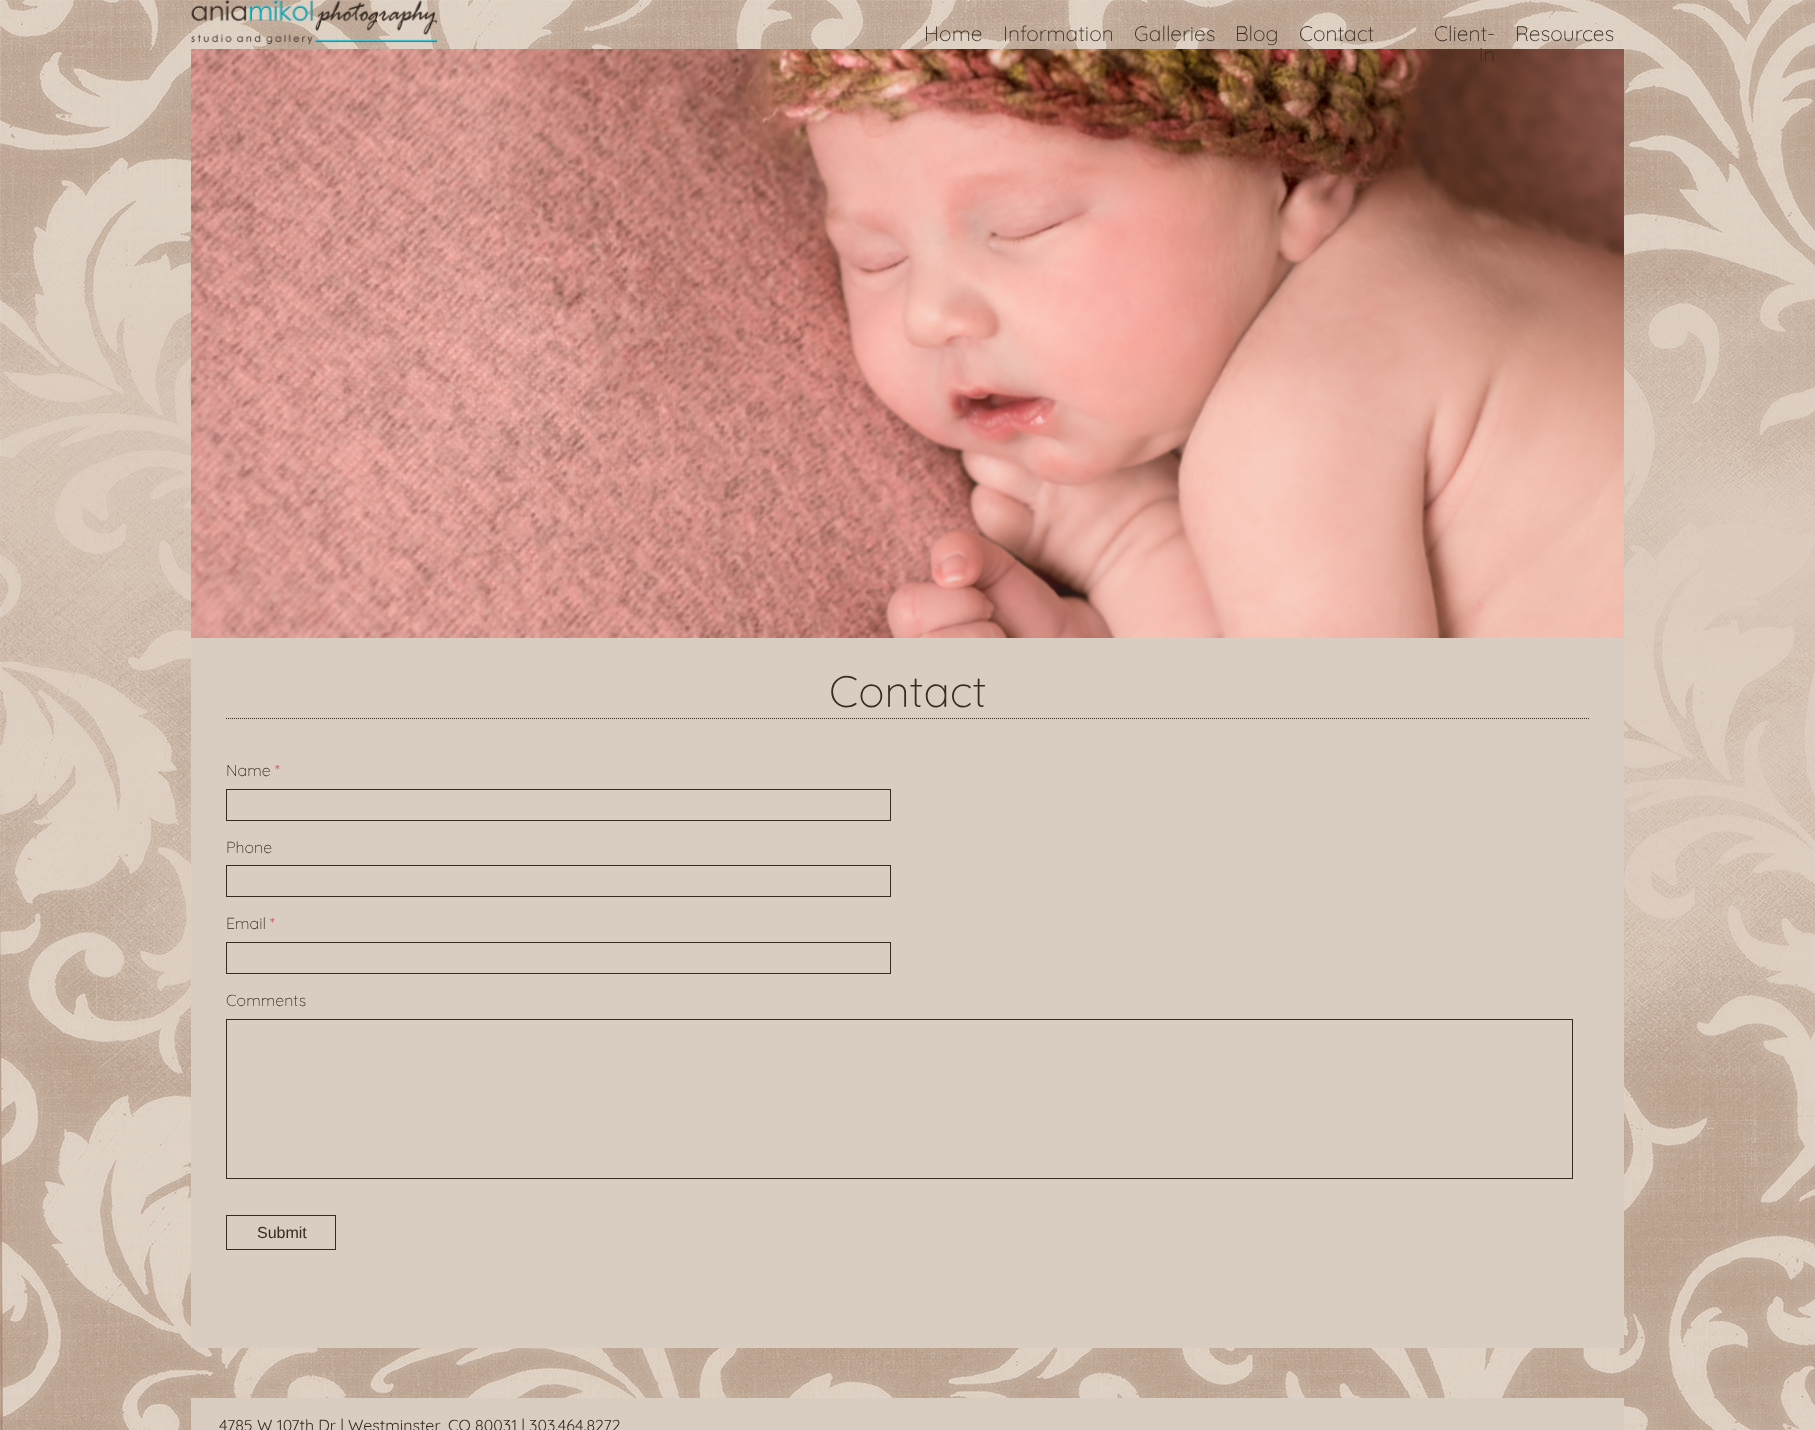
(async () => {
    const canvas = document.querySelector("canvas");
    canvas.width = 1815;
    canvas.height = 1430;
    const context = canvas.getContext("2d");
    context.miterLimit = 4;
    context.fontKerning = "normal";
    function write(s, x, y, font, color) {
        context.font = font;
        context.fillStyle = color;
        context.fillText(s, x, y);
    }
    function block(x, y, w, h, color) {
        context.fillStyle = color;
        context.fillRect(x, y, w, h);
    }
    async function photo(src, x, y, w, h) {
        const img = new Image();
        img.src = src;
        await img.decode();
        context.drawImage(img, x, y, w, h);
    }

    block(0, 0, 1815, 1430, "rgb(255, 255, 255)");
    await photo("media/1.png", 0, 0, 1815, 1430);
    await photo("media/2.png", 191, 0, 246, 44);
    write("Home", 924, 41, "300 21px Quicksand", "rgb(54, 43, 33)");
    write("Information", 1003, 41, "300 21px Quicksand", "rgb(54, 43, 33)");
    write("Galleries", 1134, 41, "300 21px Quicksand", "rgb(54, 43, 33)");
    write("Blog", 1235, 41, "300 21px Quicksand", "rgb(54, 43, 33)");
    write("Contact", 1299, 41, "300 21px Quicksand", "rgb(54, 43, 33)");
    write("Client-", 1434, 41, "300 21px Quicksand", "rgb(54, 43, 33)");
    await photo("media/3.png", 191, 49, 1433, 589);
    write("in", 1479, 62, "300 21px Quicksand", "rgb(54, 43, 33)");
    write("Resources", 1515, 41, "300 21px Quicksand", "rgb(54, 43, 33)");
    block(191, 638, 1433, 710, "rgb(217, 204, 192)");
    context.beginPath();
    context.moveTo(226, 718.5);
    context.lineTo(1589, 718.5);
    context.strokeStyle = "rgb(54, 43, 33)";
    context.setLineDash([1, 1]);
    context.stroke();
    write("Contact", 829, 707, "300 44px Quicksand", "rgb(54, 43, 33)");
    write("Name", 226, 776, "300 16px Quicksand", "rgb(54, 43, 33)");
    write("*", 275, 776, "300 16px Quicksand", "rgb(207, 71, 76)");
    context.setLineDash([]);
    context.strokeRect(226.5, 789.5, 664, 31);
    write("Phone", 226, 853, "300 16px Quicksand", "rgb(54, 43, 33)");
    context.strokeRect(226.5, 865.5, 664, 31);
    write("Email", 226, 929, "300 16px Quicksand", "rgb(54, 43, 33)");
    write("*", 270, 929, "300 16px Quicksand", "rgb(207, 71, 76)");
    context.strokeRect(226.5, 942.5, 664, 31);
    write("Comments", 226, 1006, "300 16px Quicksand", "rgb(54, 43, 33)");
    context.strokeRect(226.5, 1019.5, 1346, 159);
    context.strokeRect(226.5, 1215.5, 109, 34);
    write("Submit", 257, 1238, "16px Liberation Sans", "rgb(54, 43, 33)");
    block(191, 1398, 1433, 32, "rgb(217, 204, 192)");
    write("4785 W 107th Dr | Westminster, CO 80031 | 303.464.8272", 219, 1431, "16px Quicksand", "rgb(54, 43, 33)");
})();
